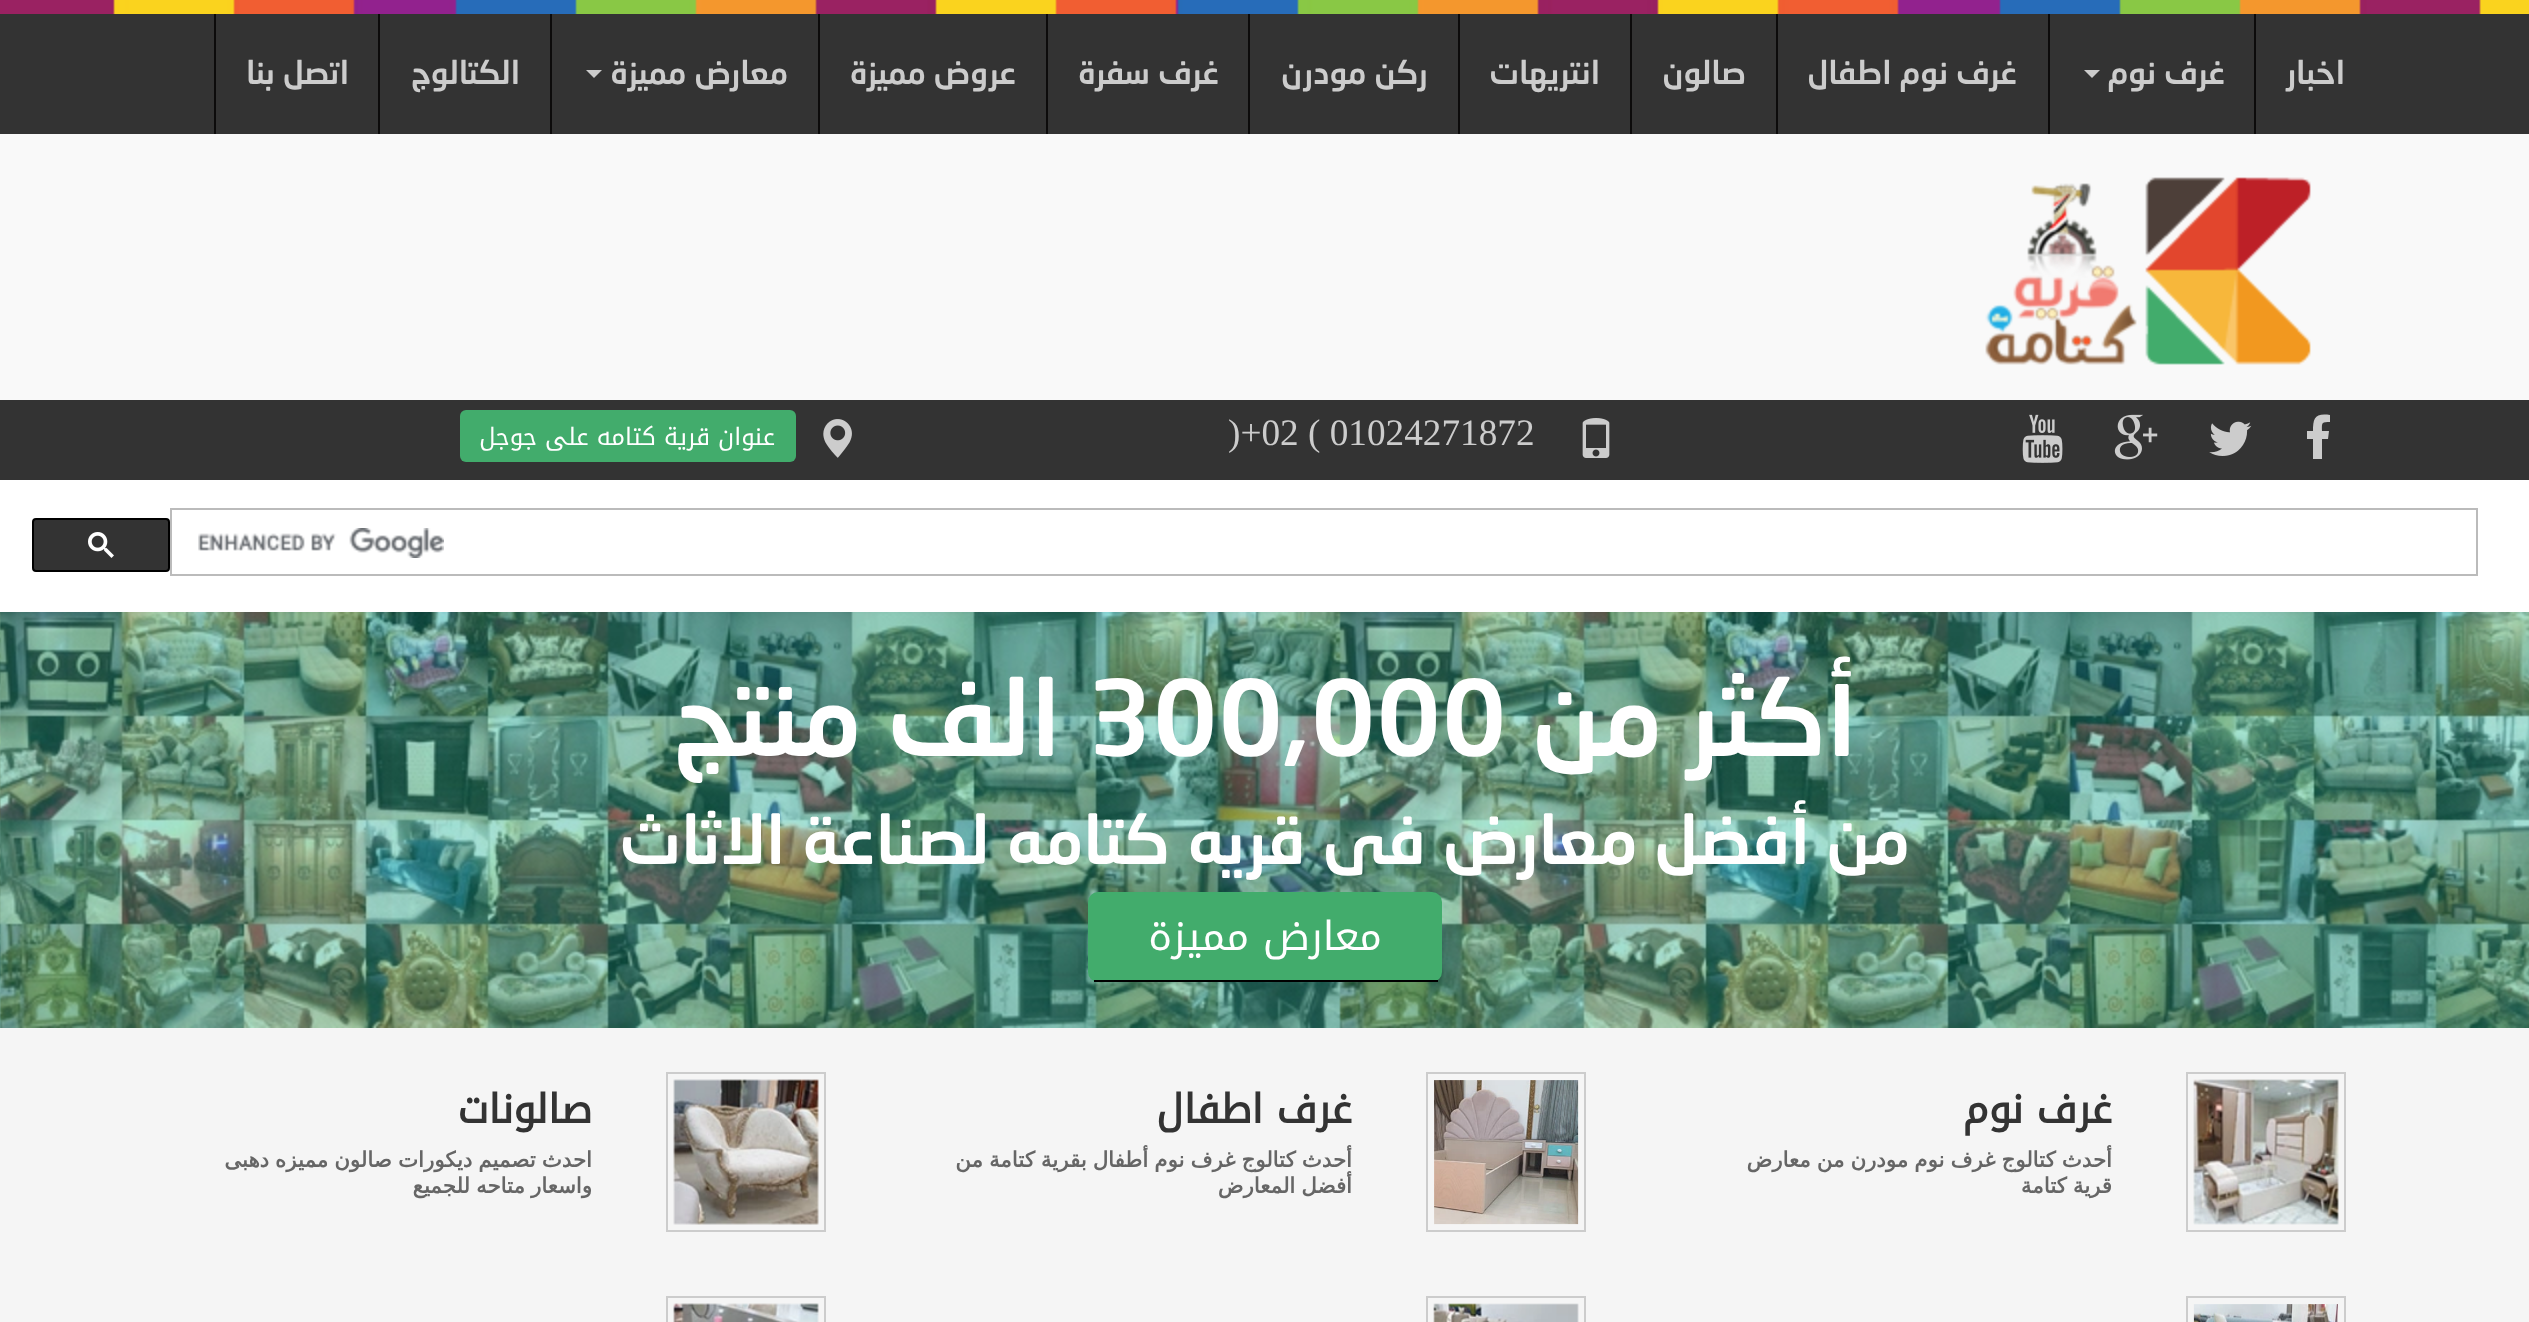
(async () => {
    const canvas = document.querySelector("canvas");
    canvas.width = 2529;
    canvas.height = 1322;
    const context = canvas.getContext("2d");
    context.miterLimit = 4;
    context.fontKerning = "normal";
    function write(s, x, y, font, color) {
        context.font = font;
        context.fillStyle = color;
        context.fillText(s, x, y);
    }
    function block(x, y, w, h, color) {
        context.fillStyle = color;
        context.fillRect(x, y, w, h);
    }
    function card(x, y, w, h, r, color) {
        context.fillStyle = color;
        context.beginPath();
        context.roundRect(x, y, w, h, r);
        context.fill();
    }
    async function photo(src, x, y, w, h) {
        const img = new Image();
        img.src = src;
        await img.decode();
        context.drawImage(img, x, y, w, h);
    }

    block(0, 0, 2529, 1322, "rgb(249, 249, 249)");
    await photo("media/1.png", 0, 0, 2529, 14);
    block(0, 14, 2529, 120, "rgb(51, 51, 51)");
    block(2254, 14, 2, 120, "rgb(12, 11, 11)");
    context.direction = "rtl";
    write("اخبار", 2345, 84, "500 32px 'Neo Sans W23'", "rgb(204, 204, 204)");
    block(2048, 14, 2, 120, "rgb(12, 11, 11)");
    write("غرف نوم", 2225, 84, "500 32px 'Neo Sans W23'", "rgb(204, 204, 204)");
    context.beginPath();
    context.moveTo(2084, 70);
    context.lineTo(2100, 70);
    context.lineTo(2092, 78);
    context.closePath();
    context.fill();
    block(1776, 14, 2, 120, "rgb(12, 11, 11)");
    write("غرف نوم اطفال", 2017, 84, "500 32px 'Neo Sans W23'", "rgb(204, 204, 204)");
    block(1630, 14, 2, 120, "rgb(12, 11, 11)");
    write("صالون", 1746, 84, "500 32px 'Neo Sans W23'", "rgb(204, 204, 204)");
    block(1458, 14, 2, 120, "rgb(12, 11, 11)");
    write("انتريهات", 1600, 84, "500 32px 'Neo Sans W23'", "rgb(204, 204, 204)");
    block(1248, 14, 2, 120, "rgb(12, 11, 11)");
    write("ركن مودرن", 1428, 84, "500 32px 'Neo Sans W23'", "rgb(204, 204, 204)");
    block(1046, 14, 2, 120, "rgb(12, 11, 11)");
    write("غرف سفرة", 1219, 84, "500 32px 'Neo Sans W23'", "rgb(204, 204, 204)");
    block(818, 14, 2, 120, "rgb(12, 11, 11)");
    write("عروض مميزة", 1016, 84, "500 32px 'Neo Sans W23'", "rgb(204, 204, 204)");
    block(550, 14, 2, 120, "rgb(12, 11, 11)");
    write("معارض مميزة", 788, 84, "500 32px 'Neo Sans W23'", "rgb(204, 204, 204)");
    context.beginPath();
    context.moveTo(586, 70);
    context.lineTo(602, 70);
    context.lineTo(594, 78);
    context.closePath();
    context.fill();
    block(378, 14, 2, 120, "rgb(12, 11, 11)");
    write("الكتالوج", 520, 84, "500 32px 'Neo Sans W23'", "rgb(204, 204, 204)");
    block(214, 14, 2, 120, "rgb(12, 11, 11)");
    write("اتصل بنا", 349, 84, "500 32px 'Neo Sans W23'", "rgb(204, 204, 204)");
    await photo("media/2.png", 1985, 177, 326, 188);
    block(0, 400, 2529, 80, "rgb(51, 51, 51)");
    context.fillStyle = "rgb(204, 204, 204)";
    context.beginPath();
    context.moveTo(2330, 415);
    context.lineTo(2330, 422);
    context.bezierCurveTo(2321, 422, 2322, 423, 2322, 431);
    context.lineTo(2329, 431);
    context.lineTo(2328, 439);
    context.lineTo(2322, 439);
    context.lineTo(2322, 459);
    context.lineTo(2313, 459);
    context.lineTo(2313, 439);
    context.lineTo(2307, 439);
    context.lineTo(2307, 431);
    context.lineTo(2313, 431);
    context.bezierCurveTo(2313, 418, 2315, 413, 2330, 415);
    context.closePath();
    context.fill();
    await photo("media/3.png", 2209, 421, 43, 35);
    await photo("media/4.png", 2114, 414, 44, 46);
    await photo("media/5.png", 2022, 414, 41, 49);
    await photo("media/6.png", 1582, 418, 28, 40);
    context.direction = "ltr";
    write(")+02 ( 01024271872", 1228, 445, "37.25px Liberation Serif", "rgb(204, 204, 204)");
    await photo("media/7.png", 823, 419, 29, 39);
    card(460, 410, 336, 52, 6, "rgb(66, 172, 108)");
    context.direction = "rtl";
    write("عنوان قرية كتامه على جوجل", 775, 445, "24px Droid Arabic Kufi", "rgb(255, 255, 255)");
    block(0, 480, 2529, 132, "rgb(255, 255, 255)");
    context.strokeStyle = "rgb(187, 187, 187)";
    context.lineWidth = 2;
    context.strokeRect(171, 509, 2306, 66);
    await photo("media/8.png", 198, 528, 246, 30);
    context.fillStyle = "rgb(51, 51, 51)";
    context.beginPath();
    context.roundRect(33, 519, 136, 52, 3);
    context.fill();
    context.strokeStyle = "rgb(0, 0, 0)";
    context.stroke();
    await photo("media/9.png", 88, 532, 26, 26);
    await photo("media/10.png", 0, 612, 2529, 416);
    write("أكثر من", 1857, 756, "500 104px 'Neo Sans W23'", "rgb(255, 255, 255)");
    context.direction = "ltr";
    write("300,000", 1087, 756, "500 104px 'Neo Sans W23'", "rgb(255, 255, 255)");
    context.direction = "rtl";
    write("الف منتج", 1061, 756, "500 104px 'Neo Sans W23'", "rgb(255, 255, 255)");
    write("من أفضل معارض فى قريه كتامه لصناعة الاثاث", 1910, 864, "500 66.7px 'Neo Sans W23'", "rgb(255, 255, 255)");
    card(1088, 892, 354, 90, 10, "rgb(66, 172, 108)");
    write("معارض مميزة", 1382, 950, "40px Droid Arabic Kufi", "rgb(255, 255, 255)");
    block(1094, 980, 344, 2, "rgb(0, 0, 0)");
    block(0, 1028, 2529, 294, "rgb(245, 245, 245)");
    context.strokeStyle = "rgb(204, 204, 204)";
    context.strokeRect(2187, 1073, 158, 158);
    await photo("media/11.png", 2193, 1079, 146, 146);
    write("غرف نوم", 2112, 1123, "bold 40px Droid Arabic Kufi", "rgb(51, 51, 51)");
    context.wordSpacing = "-0.75px";
    write("أحدث كتالوج غرف نوم مودرن من معارض", 2112, 1167, "bold 21.3px DejaVu Sans", "rgb(102, 102, 102)");
    write("قرية كتامة", 2112, 1193, "bold 21.3px DejaVu Sans", "rgb(102, 102, 102)");
    context.strokeRect(1427, 1073, 158, 158);
    await photo("media/12.png", 1434, 1080, 145, 145);
    context.wordSpacing = "0px";
    write("غرف اطفال", 1352, 1123, "bold 40px Droid Arabic Kufi", "rgb(51, 51, 51)");
    context.wordSpacing = "-0.75px";
    write("أحدث كتالوج غرف نوم أطفال بقرية كتامة من", 1352, 1167, "bold 21.3px DejaVu Sans", "rgb(102, 102, 102)");
    write("أفضل المعارض", 1352, 1193, "bold 21.3px DejaVu Sans", "rgb(102, 102, 102)");
    context.strokeRect(667, 1073, 158, 158);
    await photo("media/13.png", 673, 1079, 146, 146);
    context.wordSpacing = "0px";
    write("صالونات", 592, 1123, "bold 40px Droid Arabic Kufi", "rgb(51, 51, 51)");
    context.wordSpacing = "-0.75px";
    write("احدث تصميم ديكورات صالون مميزه دهبى", 592, 1167, "bold 21.3px DejaVu Sans", "rgb(102, 102, 102)");
    write("واسعار متاحه للجميع", 592, 1193, "bold 21.3px DejaVu Sans", "rgb(102, 102, 102)");
    context.strokeRect(2187, 1297, 158, 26);
    await photo("media/14.png", 2193, 1304, 145, 18);
    context.strokeRect(1427, 1297, 158, 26);
    await photo("media/15.png", 1433, 1303, 146, 19);
    context.strokeRect(667, 1297, 158, 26);
    await photo("media/16.png", 673, 1303, 146, 19);
})();
